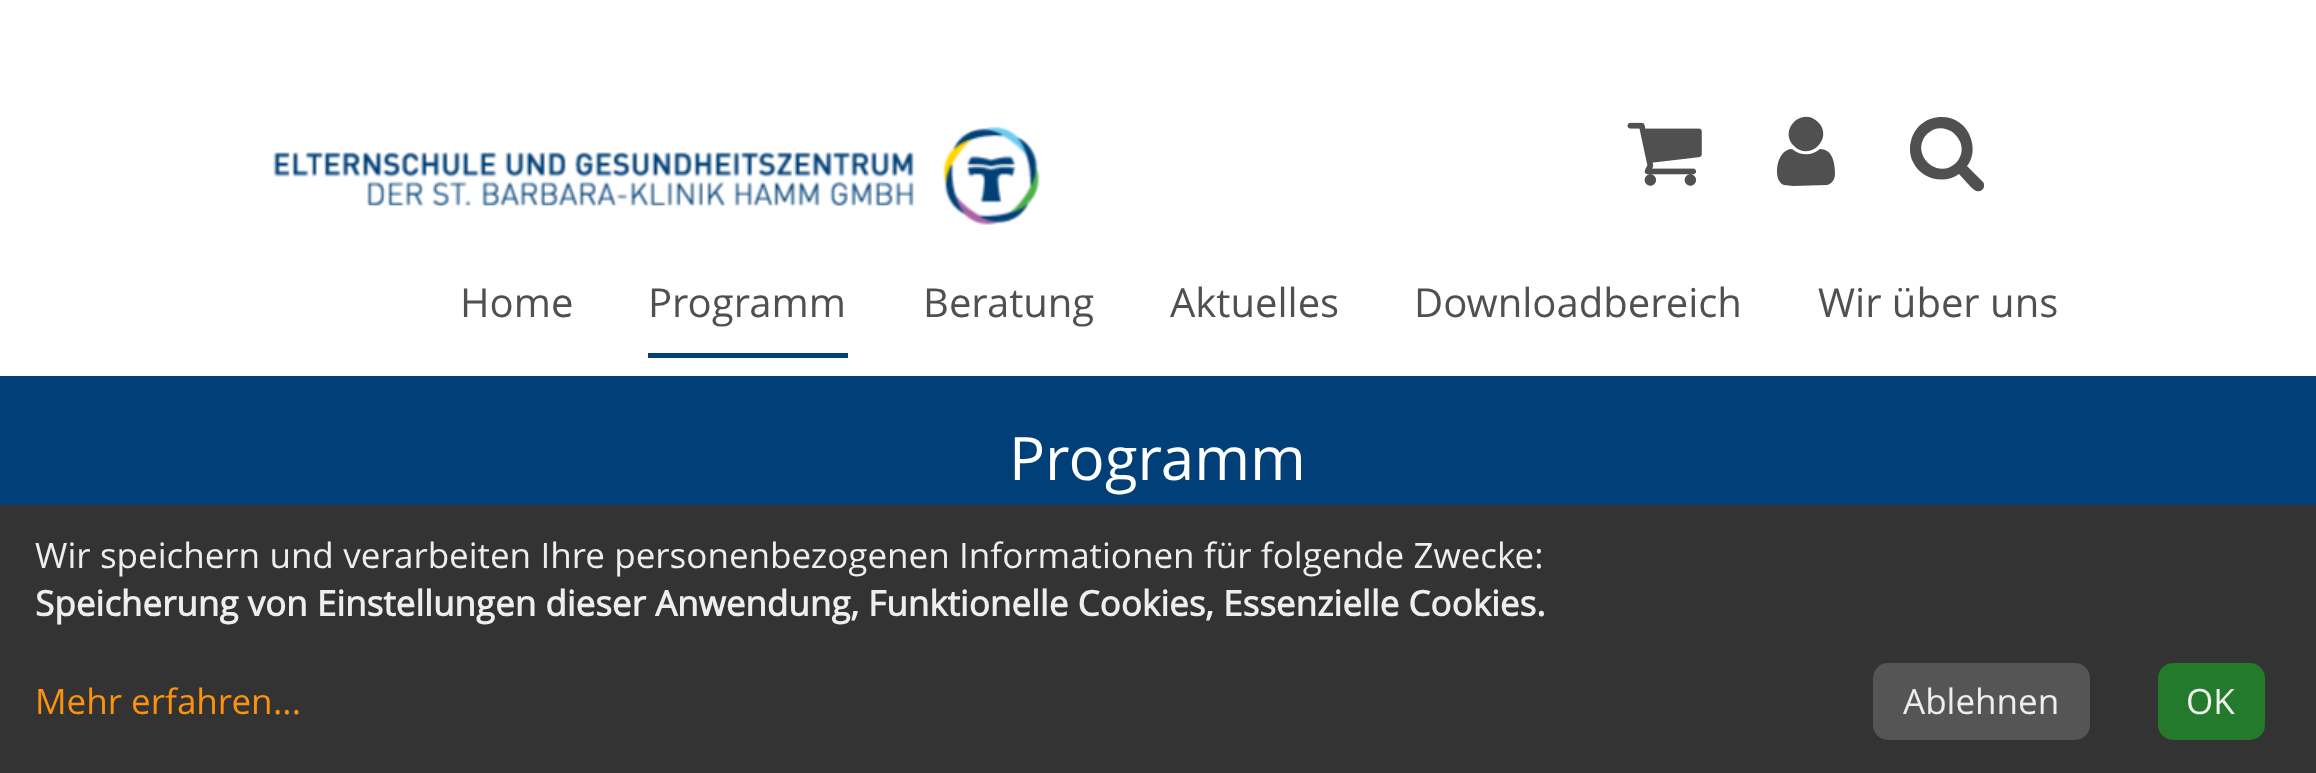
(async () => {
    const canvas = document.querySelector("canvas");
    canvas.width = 2316;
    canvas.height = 773;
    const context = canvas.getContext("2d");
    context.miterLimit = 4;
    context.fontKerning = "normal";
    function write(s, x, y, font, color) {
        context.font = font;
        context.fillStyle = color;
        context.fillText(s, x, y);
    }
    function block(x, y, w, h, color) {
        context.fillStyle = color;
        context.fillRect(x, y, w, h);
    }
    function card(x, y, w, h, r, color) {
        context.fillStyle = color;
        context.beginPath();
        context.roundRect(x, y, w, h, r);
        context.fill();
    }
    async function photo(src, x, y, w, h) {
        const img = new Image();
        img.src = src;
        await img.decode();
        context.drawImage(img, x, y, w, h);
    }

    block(0, 0, 2316, 773, "rgb(1, 63, 120)");
    block(0, 0, 2316, 376, "rgb(255, 255, 255)");
    await photo("media/1.png", 273, 126, 767, 99);
    await photo("media/2.png", 1627, 122, 75, 64);
    context.fillStyle = "rgb(80, 80, 80)";
    context.beginPath();
    context.moveTo(1835, 174);
    context.bezierCurveTo(1835, 179, 1832, 184, 1827, 185);
    context.lineTo(1793, 186);
    context.lineTo(1784, 185);
    context.bezierCurveTo(1772, 181, 1776, 149, 1792, 149);
    context.bezierCurveTo(1800, 156, 1812, 156, 1820, 149);
    context.bezierCurveTo(1833, 149, 1835, 164, 1835, 174);
    context.closePath();
    context.moveTo(1818, 122);
    context.bezierCurveTo(1834, 138, 1810, 162, 1794, 146);
    context.bezierCurveTo(1778, 130, 1802, 106, 1818, 122);
    context.closePath();
    context.fill();
    context.beginPath();
    context.moveTo(1956, 163);
    context.bezierCurveTo(1974, 144, 1946, 116, 1927, 134);
    context.bezierCurveTo(1909, 153, 1937, 181, 1956, 163);
    context.closePath();
    context.moveTo(1984, 186);
    context.bezierCurveTo(1984, 188, 1983, 189, 1982, 190);
    context.bezierCurveTo(1977, 194, 1972, 188, 1969, 185);
    context.lineTo(1959, 174);
    context.bezierCurveTo(1944, 185, 1921, 179, 1913, 162);
    context.bezierCurveTo(1910, 156, 1909, 148, 1911, 141);
    context.bezierCurveTo(1919, 110, 1962, 109, 1971, 139);
    context.bezierCurveTo(1974, 148, 1973, 159, 1967, 166);
    context.lineTo(1983, 182);
    context.bezierCurveTo(1984, 183, 1984, 184, 1984, 186);
    context.closePath();
    context.fill();
    write("Home", 460, 317, "40px Open Sans", "rgb(80, 80, 80)");
    write("Programm", 648, 317, "40px Open Sans", "rgb(80, 80, 80)");
    block(648, 353, 200, 5, "rgb(1, 63, 120)");
    write("Beratung", 923, 317, "40px Open Sans", "rgb(80, 80, 80)");
    write("Aktuelles", 1170, 317, "40px Open Sans", "rgb(80, 80, 80)");
    write("Downloadbereich", 1414, 317, "40px Open Sans", "rgb(80, 80, 80)");
    write("Wir über uns", 1818, 317, "40px Open Sans", "rgb(80, 80, 80)");
    write("Programm", 1009, 480, "60px Open Sans", "rgb(255, 255, 255)");
    block(0, 505, 2316, 268, "rgb(51, 51, 51)");
    context.wordSpacing = "0.25px";
    write("Wir speichern und verarbeiten Ihre personenbezogenen Informationen für folgende Zwecke:", 35, 568, "35px Open Sans", "rgb(238, 238, 238)");
    context.wordSpacing = "0px";
    write("Speicherung von Einstellungen dieser Anwendung, Funktionelle Cookies, Essenzielle Cookies.", 35, 616, "bold 35px Open Sans", "rgb(238, 238, 238)");
    write("Mehr erfahren", 35, 714, "35px Open Sans", "rgb(253, 147, 12)");
    write("...", 273, 714, "35px Open Sans", "rgb(253, 147, 12)");
    card(1873, 663, 217, 77, 15, "rgb(85, 85, 85)");
    write("Ablehnen", 1903, 714, "35px Open Sans", "rgb(238, 238, 238)");
    card(2158, 663, 107, 77, 15, "rgb(34, 122, 42)");
    write("OK", 2186, 714, "35px Open Sans", "rgb(238, 238, 238)");
})();
